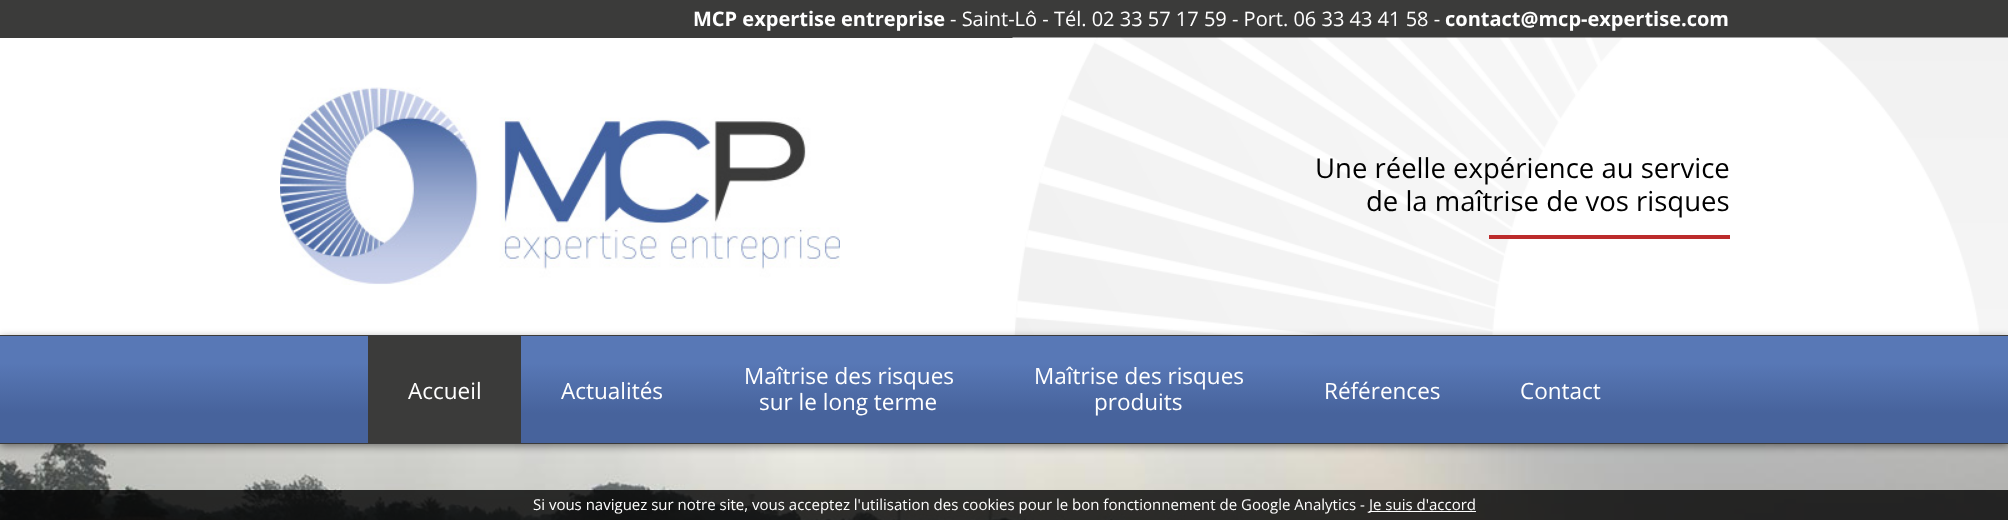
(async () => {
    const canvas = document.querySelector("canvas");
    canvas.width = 2008;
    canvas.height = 520;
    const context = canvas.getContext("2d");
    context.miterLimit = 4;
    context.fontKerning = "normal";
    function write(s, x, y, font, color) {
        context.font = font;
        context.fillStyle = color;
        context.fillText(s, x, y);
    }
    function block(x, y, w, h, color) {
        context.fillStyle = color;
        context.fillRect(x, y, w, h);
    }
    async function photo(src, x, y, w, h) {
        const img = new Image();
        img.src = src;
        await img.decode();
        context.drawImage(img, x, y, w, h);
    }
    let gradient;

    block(0, 0, 2008, 520, "rgb(59, 59, 58)");
    write("MCP expertise entreprise", 693, 26, "bold 20px Open Sans", "rgb(255, 255, 255)");
    write("- Saint-Lô - Tél. 02 33 57 17 59 - Port. 06 33 43 41 58 -", 950, 26, "20px Open Sans", "rgb(255, 255, 255)");
    write("contact@mcp-expertise.com", 1445, 26, "bold 20px Open Sans", "rgb(255, 255, 255)");
    block(0, 38, 1013, 297, "rgb(255, 255, 255)");
    await photo("media/1.png", 1012, 37, 996, 298);
    await photo("media/2.png", 280, 87, 560, 198);
    write("Une réelle expérience au service", 1315, 178, "27.5px Open Sans", "rgb(0, 0, 0)");
    write("de la maîtrise de vos risques", 1366, 211, "27.5px Open Sans", "rgb(0, 0, 0)");
    block(1489, 235, 241, 4, "rgb(188, 43, 43)");
    await photo("media/3.png", 0, 444, 2008, 76);
    context.fillStyle = "rgba(0, 0, 0, 0.49)";
    context.filter = "blur(4.5px)";
    context.beginPath();
    context.rect(0, 338, 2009, 108);
    context.fill();
    context.filter = "none";
    gradient = context.createLinearGradient(1004, 336, 1004, 443);
    gradient.addColorStop(0, "rgb(88, 120, 182)");
    gradient.addColorStop(0.25, "rgb(88, 120, 182)");
    gradient.addColorStop(0.72, "rgb(71, 99, 156)");
    gradient.addColorStop(1, "rgb(71, 99, 156)");
    context.fillStyle = gradient;
    context.fillRect(0, 336, 2008, 107);
    block(0, 335, 2008, 1, "rgb(59, 59, 59)");
    block(0, 443, 2008, 1, "rgb(59, 59, 59)");
    block(368, 336, 153, 107, "rgb(59, 59, 58)");
    write("Accueil", 408, 399, "22.5px Open Sans", "rgb(255, 255, 255)");
    write("Actualités", 561, 399, "22.5px Open Sans", "rgb(255, 255, 255)");
    write("Maîtrise des risques", 744, 384, "22.5px Open Sans", "rgb(255, 255, 255)");
    write("sur le long terme", 759, 410, "22.5px Open Sans", "rgb(255, 255, 255)");
    write("Maîtrise des risques", 1034, 384, "22.5px Open Sans", "rgb(255, 255, 255)");
    write("produits", 1094, 410, "22.5px Open Sans", "rgb(255, 255, 255)");
    write("Références", 1324, 399, "22.5px Open Sans", "rgb(255, 255, 255)");
    write("Contact", 1520, 399, "22.5px Open Sans", "rgb(255, 255, 255)");
    block(0, 490, 2008, 30, "rgba(0, 0, 0, 0.8)");
    write("Si vous naviguez sur notre site, vous acceptez l'utilisation des cookies pour le bon fonctionnement de Google Analytics -", 533, 510, "15px Open Sans", "rgb(255, 255, 255)");
    block(1369, 511, 107, 1, "rgb(255, 255, 255)");
    write("Je suis d'accord", 1369, 510, "15px Open Sans", "rgb(255, 255, 255)");
})();
